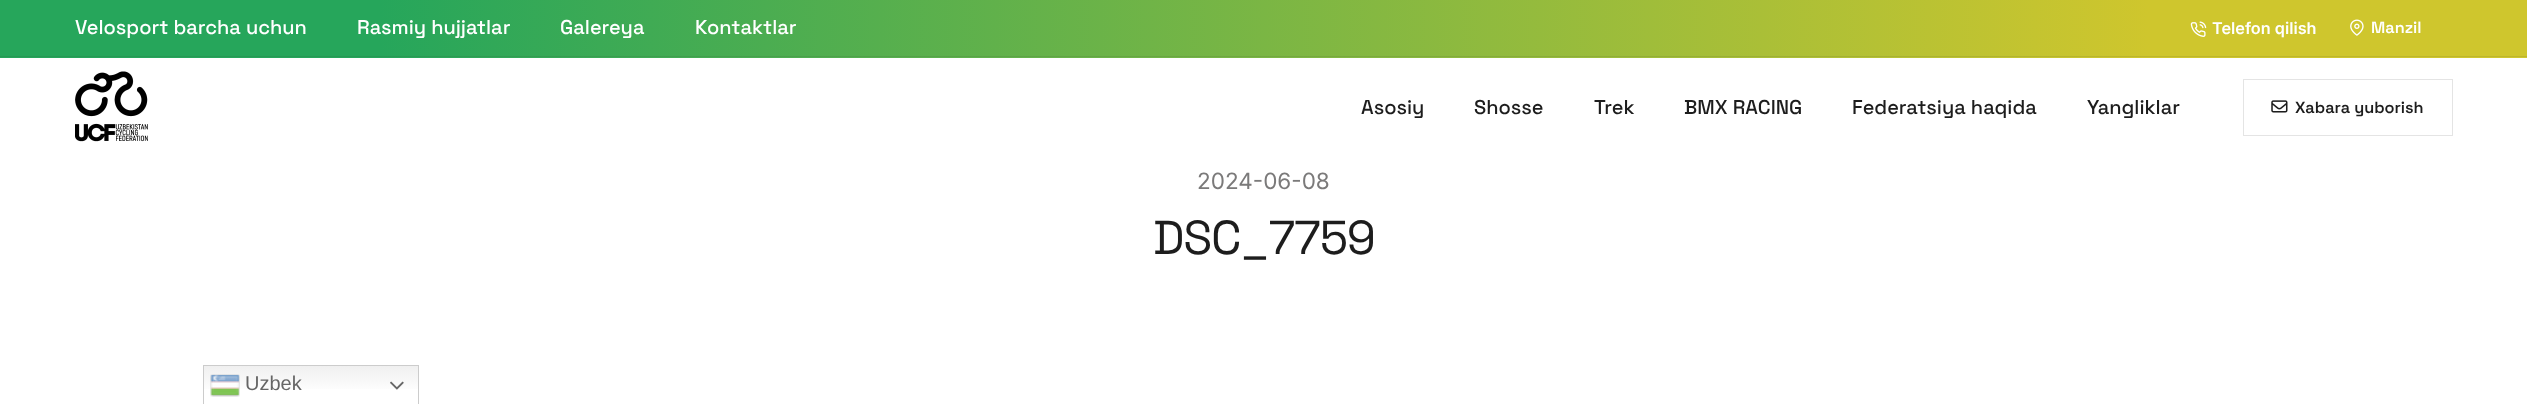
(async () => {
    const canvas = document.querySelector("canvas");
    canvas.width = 2527;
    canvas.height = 404;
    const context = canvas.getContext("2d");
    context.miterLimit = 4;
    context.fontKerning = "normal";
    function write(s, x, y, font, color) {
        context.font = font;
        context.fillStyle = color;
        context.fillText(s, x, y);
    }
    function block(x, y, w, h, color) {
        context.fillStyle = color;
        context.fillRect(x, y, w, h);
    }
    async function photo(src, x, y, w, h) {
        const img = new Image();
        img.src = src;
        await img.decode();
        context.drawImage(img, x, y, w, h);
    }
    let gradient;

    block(0, 0, 2527, 404, "rgb(255, 255, 255)");
    gradient = context.createLinearGradient(0, 28, 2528, 28);
    gradient.addColorStop(0.15, "rgb(38, 166, 91)");
    gradient.addColorStop(0.85, "rgb(207, 198, 45)");
    context.fillStyle = gradient;
    context.fillRect(0, 0, 2527, 58);
    gradient = context.createLinearGradient(0, 28, 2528, 28);
    gradient.addColorStop(0.15, "rgb(38, 153, 85)");
    gradient.addColorStop(0.85, "rgb(190, 182, 44)");
    context.fillStyle = gradient;
    context.fillRect(0, 56, 2527, 1);
    write("Velosport barcha uchun", 75, 34, "500 20px Space Grotesk", "rgb(255, 255, 255)");
    write("Rasmiy hujjatlar", 357, 34, "500 20px Space Grotesk", "rgb(255, 255, 255)");
    write("Galereya", 560, 34, "500 20px Space Grotesk", "rgb(255, 255, 255)");
    write("Kontaktlar", 695, 34, "500 20px Space Grotesk", "rgb(255, 255, 255)");
    await photo("media/1.png", 2190, 21, 17, 16);
    write("Telefon qilish", 2212, 34, "600 16.25px Inter", "rgb(255, 255, 255)");
    await photo("media/2.png", 2350, 19, 14, 17);
    write("Manzil", 2371, 33, "600 16.25px Space Grotesk", "rgb(255, 255, 255)");
    await photo("media/3.png", 75, 71, 73, 71);
    write("Asosiy", 1361, 114, "500 20px Space Grotesk", "rgb(29, 29, 29)");
    write("Shosse", 1474, 114, "500 20px Space Grotesk", "rgb(29, 29, 29)");
    write("Trek", 1594, 114, "500 20px Space Grotesk", "rgb(29, 29, 29)");
    write("BMX RACING", 1684, 114, "500 20px Space Grotesk", "rgb(29, 29, 29)");
    write("Federatsiya haqida", 1852, 114, "500 20px Space Grotesk", "rgb(29, 29, 29)");
    write("Yangliklar", 2087, 114, "500 20px Space Grotesk", "rgb(29, 29, 29)");
    context.strokeStyle = "rgb(228, 228, 228)";
    context.strokeRect(2243.5, 79.5, 209, 56);
    await photo("media/4.png", 2271, 100, 17, 13);
    write("Xabara yuborish", 2295, 113, "600 16.25px Space Grotesk", "rgb(29, 29, 29)");
    write("2024-06-08", 1197, 189, "22.5px Inter", "rgb(123, 122, 122)");
    context.letterSpacing = "-1.25px";
    write("DSC_7759", 1153, 254, "47.5px Space Grotesk", "rgb(29, 29, 29)");
    gradient = context.createLinearGradient(311, 365, 311, 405);
    gradient.addColorStop(0, "rgb(239, 239, 239)");
    gradient.addColorStop(0.7, "rgb(255, 255, 255)");
    context.fillStyle = gradient;
    context.fillRect(204, 366, 214, 23);
    context.strokeStyle = "rgb(204, 204, 204)";
    context.strokeRect(203.5, 365.5, 215, 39);
    await photo("media/5.png", 210, 374, 30, 23);
    context.letterSpacing = "0px";
    write("Uzbek", 245, 390, "20px Liberation Sans", "rgb(102, 102, 102)");
    await photo("media/6.png", 390, 381, 14, 9);
})();
